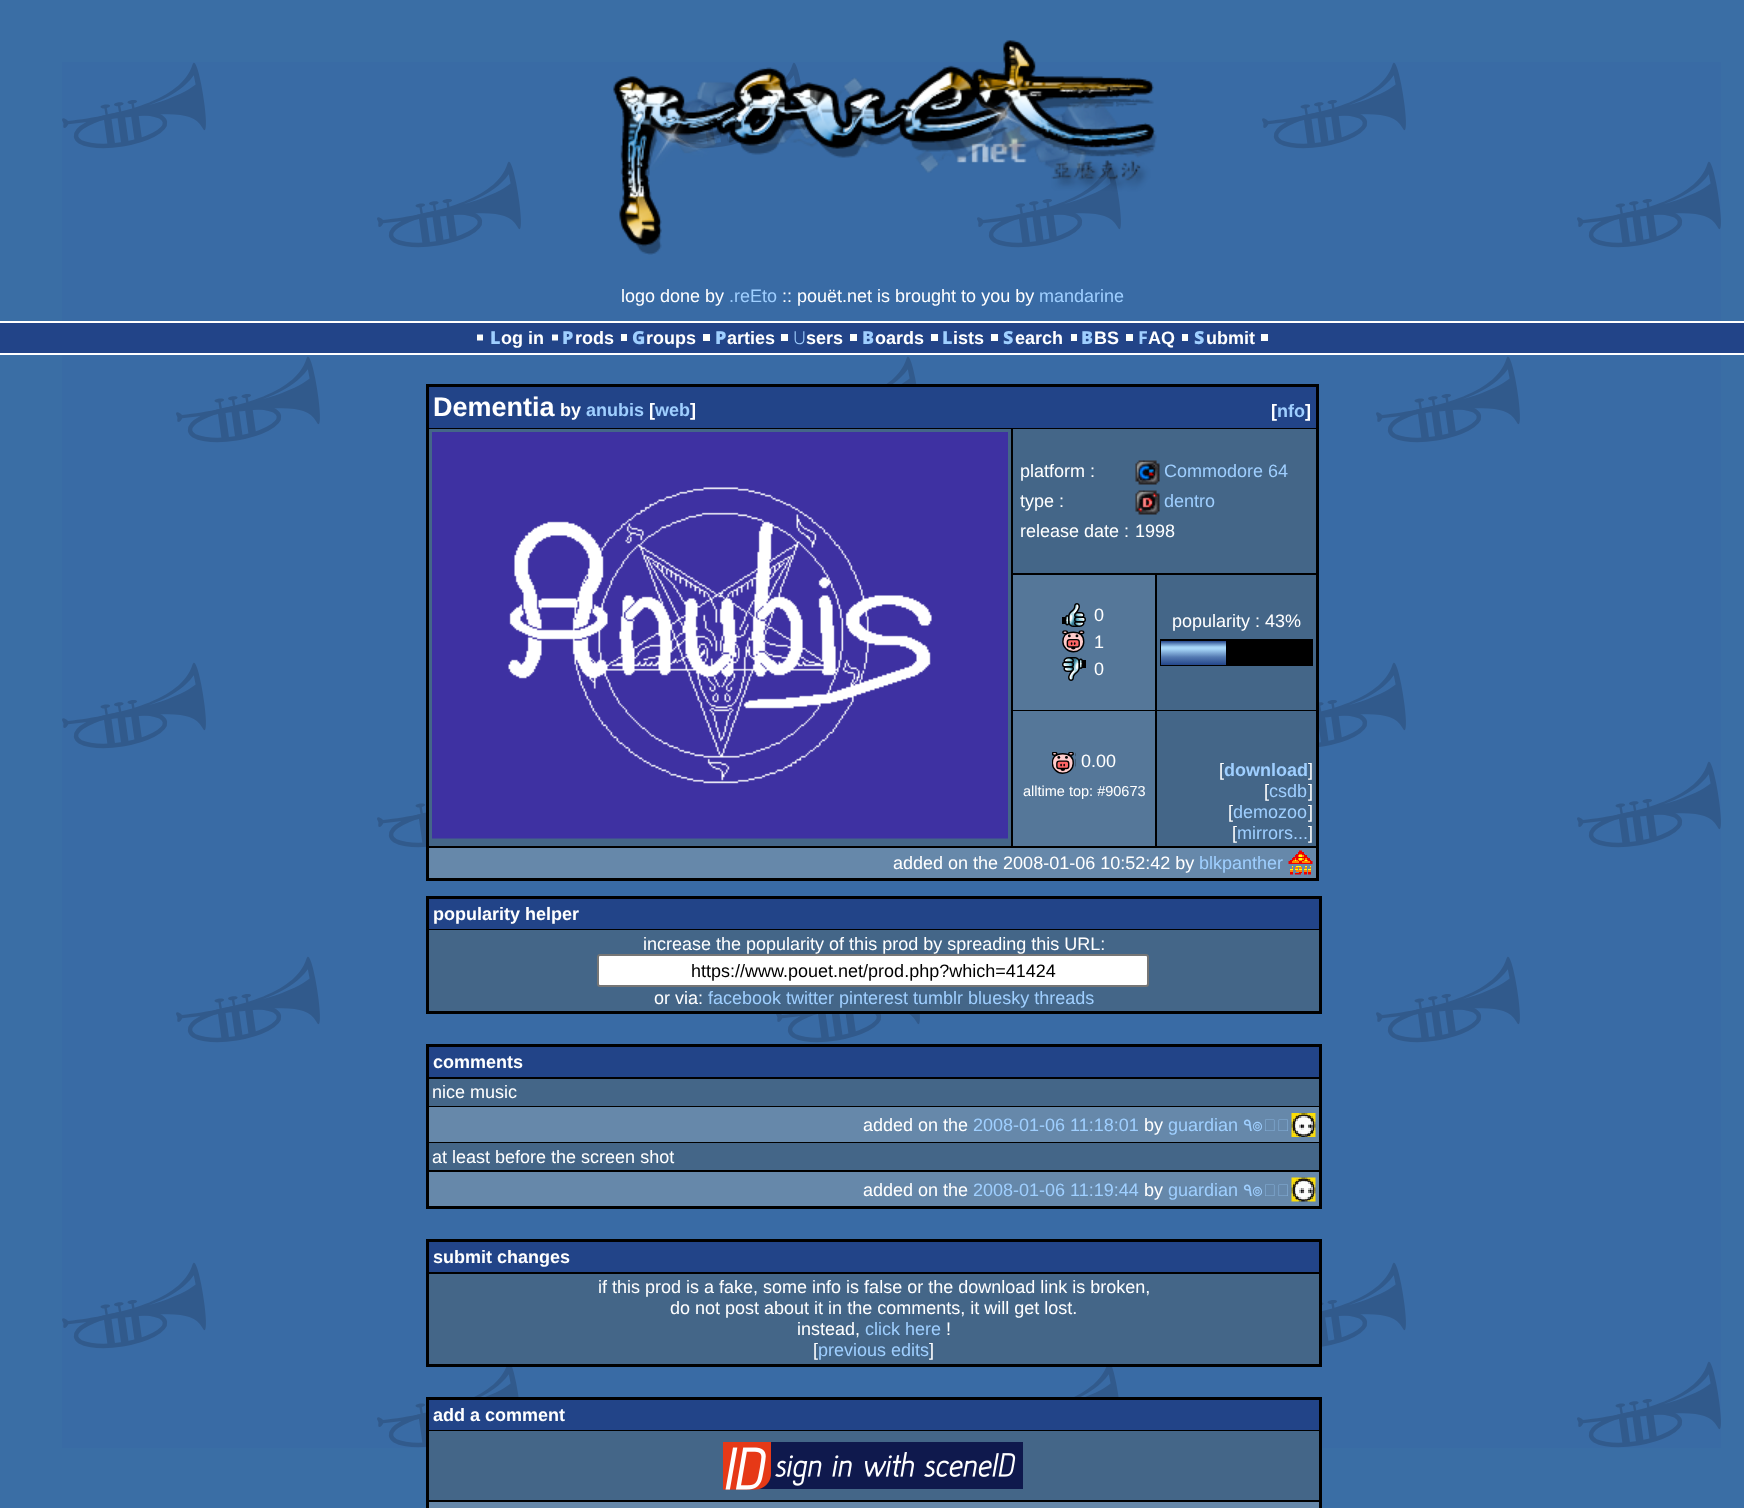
(async () => {
    const canvas = document.querySelector("canvas");
    canvas.width = 1744;
    canvas.height = 1508;
    const context = canvas.getContext("2d");
    context.miterLimit = 4;
    context.fontKerning = "normal";
    function write(s, x, y, font, color) {
        context.font = font;
        context.fillStyle = color;
        context.fillText(s, x, y);
    }
    function block(x, y, w, h, color) {
        context.fillStyle = color;
        context.fillRect(x, y, w, h);
    }
    async function photo(src, x, y, w, h) {
        const img = new Image();
        img.src = src;
        await img.decode();
        context.drawImage(img, x, y, w, h);
    }
    let gradient;

    block(0, 0, 1744, 1508, "rgb(58, 110, 165)");
    await photo("media/1.png", 62, 62, 1659, 1386);
    await photo("media/2.png", 613, 40, 544, 215);
    write("logo done by", 621, 302, "18px Liberation Sans", "rgb(255, 255, 255)");
    write(".reEto", 729, 302, "18px Liberation Sans", "rgb(159, 207, 255)");
    write(":: pouët.net is brought to you by", 782, 302, "18px Liberation Sans", "rgb(255, 255, 255)");
    write("mandarine", 1039, 302, "18px Liberation Sans", "rgb(159, 207, 255)");
    block(0, 323, 1744, 30, "rgb(34, 68, 136)");
    block(0, 321, 1744, 2, "rgb(255, 255, 255)");
    block(0, 353, 1744, 2, "rgb(255, 255, 255)");
    await photo("media/3.png", 477, 334, 81, 7);
    write("L", 490, 344, "900 18px Noto Sans", "rgb(159, 207, 255)");
    write("og in", 501, 344, "bold 18px Liberation Sans", "rgb(255, 255, 255)");
    block(621, 334, 6, 7, "rgb(252, 254, 252)");
    write("P", 562, 344, "900 18px Noto Sans", "rgb(159, 207, 255)");
    write("rods", 575, 344, "bold 18px Liberation Sans", "rgb(255, 255, 255)");
    block(703, 334, 7, 7, "rgb(252, 254, 252)");
    write("G", 632, 344, "900 18px Noto Sans", "rgb(159, 207, 255)");
    write("roups", 646, 344, "bold 18px Liberation Sans", "rgb(255, 255, 255)");
    block(781, 334, 7, 7, "rgb(252, 254, 252)");
    write("P", 715, 344, "900 18px Noto Sans", "rgb(159, 207, 255)");
    write("arties", 727, 344, "bold 18px Liberation Sans", "rgb(255, 255, 255)");
    block(850, 334, 7, 7, "rgb(252, 254, 252)");
    write("U", 793, 344, "300 18px Noto Sans", "rgb(159, 207, 255)");
    write("sers", 806, 344, "bold 18px Liberation Sans", "rgb(255, 255, 255)");
    block(931, 334, 7, 7, "rgb(252, 254, 252)");
    write("B", 862, 344, "900 18px Noto Sans", "rgb(159, 207, 255)");
    write("oards", 875, 344, "bold 18px Liberation Sans", "rgb(255, 255, 255)");
    block(991, 334, 7, 7, "rgb(252, 254, 252)");
    write("L", 942, 344, "900 18px Noto Sans", "rgb(159, 207, 255)");
    write("ists", 953, 344, "bold 18px Liberation Sans", "rgb(255, 255, 255)");
    block(1071, 334, 6, 7, "rgb(252, 254, 252)");
    write("S", 1003, 344, "900 18px Noto Sans", "rgb(159, 207, 255)");
    write("earch", 1015, 344, "bold 18px Liberation Sans", "rgb(255, 255, 255)");
    block(1126, 334, 7, 7, "rgb(252, 254, 252)");
    write("B", 1081, 344, "900 18px Noto Sans", "rgb(159, 207, 255)");
    write("BS", 1094, 344, "bold 18px Liberation Sans", "rgb(255, 255, 255)");
    block(1182, 334, 6, 7, "rgb(252, 254, 252)");
    write("F", 1138, 344, "bold 18px Noto Sans", "rgb(159, 207, 255)");
    write("AQ", 1148, 344, "bold 18px Liberation Sans", "rgb(255, 255, 255)");
    block(1261, 334, 7, 7, "rgb(252, 254, 252)");
    write("S", 1194, 344, "900 18px Noto Sans", "rgb(159, 207, 255)");
    write("ubmit", 1206, 344, "bold 18px Liberation Sans", "rgb(255, 255, 255)");
    block(426, 384, 893, 497, "rgb(0, 0, 0)");
    block(429, 387, 887, 41, "rgb(34, 68, 136)");
    write("Dementia", 433, 416, "bold 27px Liberation Sans", "rgb(255, 255, 255)");
    write("by", 560, 416, "bold 18px Liberation Sans", "rgb(255, 255, 255)");
    write("anubis", 586, 416, "bold 18px Liberation Sans", "rgb(159, 207, 255)");
    write("[", 649, 416, "bold 18px Liberation Sans", "rgb(255, 255, 255)");
    write("web", 655, 416, "bold 18px Liberation Sans", "rgb(159, 207, 255)");
    write("]", 690, 416, "bold 18px Liberation Sans", "rgb(255, 255, 255)");
    write("[", 1271, 417, "bold 18px Liberation Sans", "rgb(255, 255, 255)");
    write("nfo", 1277, 417, "bold 18px Liberation Sans", "rgb(159, 207, 255)");
    write("]", 1305, 417, "bold 18px Liberation Sans", "rgb(255, 255, 255)");
    block(429, 429, 582, 417, "rgb(68, 102, 136)");
    await photo("media/4.png", 432, 432, 576, 407);
    block(1013, 429, 303, 144, "rgb(68, 102, 136)");
    write("platform :", 1020, 477, "18px Liberation Sans", "rgb(255, 255, 255)");
    await photo("media/5.png", 1135, 460, 25, 25);
    write("Commodore 64", 1164, 477, "18px Liberation Sans", "rgb(159, 207, 255)");
    write("type :", 1020, 507, "18px Liberation Sans", "rgb(255, 255, 255)");
    await photo("media/6.png", 1135, 490, 25, 25);
    write("dentro", 1164, 507, "18px Liberation Sans", "rgb(159, 207, 255)");
    write("release date :", 1020, 537, "18px Liberation Sans", "rgb(255, 255, 255)");
    write("1998", 1135, 537, "18px Liberation Sans", "rgb(255, 255, 255)");
    block(1013, 575, 142, 135, "rgb(85, 119, 153)");
    await photo("media/7.png", 1062, 603, 24, 24);
    write("0", 1094, 621, "18px Liberation Sans", "rgb(255, 255, 255)");
    await photo("media/8.png", 1062, 630, 23, 23);
    write("1", 1094, 648, "18px Liberation Sans", "rgb(255, 255, 255)");
    await photo("media/9.png", 1062, 657, 24, 24);
    write("0", 1094, 675, "18px Liberation Sans", "rgb(255, 255, 255)");
    block(1157, 575, 159, 135, "rgb(68, 102, 136)");
    write("popularity : 43%", 1172, 627, "18px Liberation Sans", "rgb(255, 255, 255)");
    block(1160, 639, 153, 27, "rgb(0, 0, 0)");
    gradient = context.createLinearGradient(1193, 641, 1193, 665);
    gradient.addColorStop(0, "rgb(36, 70, 138)");
    gradient.addColorStop(0.25, "rgb(167, 214, 248)");
    gradient.addColorStop(0.33, "rgb(167, 214, 248)");
    gradient.addColorStop(0.67, "rgb(84, 122, 178)");
    gradient.addColorStop(1, "rgb(36, 70, 138)");
    context.fillStyle = gradient;
    context.fillRect(1161, 641, 65, 24);
    block(1013, 711, 142, 135, "rgb(85, 119, 153)");
    await photo("media/10.png", 1052, 752, 24, 22);
    write("0.00", 1081, 767, "18px Liberation Sans", "rgb(255, 255, 255)");
    write("alltime top: #90673", 1023, 796, "14.5px Liberation Sans", "rgb(255, 255, 255)");
    block(1157, 711, 159, 135, "rgb(68, 102, 136)");
    write("[", 1219, 776, "18px Liberation Sans", "rgb(255, 255, 255)");
    write("download", 1224, 776, "bold 18px Liberation Sans", "rgb(159, 207, 255)");
    write("]", 1308, 776, "18px Liberation Sans", "rgb(255, 255, 255)");
    write("[", 1264, 797, "18px Liberation Sans", "rgb(255, 255, 255)");
    write("csdb", 1269, 797, "18px Liberation Sans", "rgb(159, 207, 255)");
    write("]", 1308, 797, "18px Liberation Sans", "rgb(255, 255, 255)");
    write("[", 1228, 818, "18px Liberation Sans", "rgb(255, 255, 255)");
    write("demozoo", 1233, 818, "18px Liberation Sans", "rgb(159, 207, 255)");
    write("]", 1308, 818, "18px Liberation Sans", "rgb(255, 255, 255)");
    write("[", 1232, 839, "18px Liberation Sans", "rgb(255, 255, 255)");
    write("mirrors...", 1237, 839, "18px Liberation Sans", "rgb(159, 207, 255)");
    write("]", 1308, 839, "18px Liberation Sans", "rgb(255, 255, 255)");
    block(429, 848, 887, 30, "rgb(102, 136, 170)");
    write("added on the 2008-01-06 10:52:42 by", 893, 869, "18px Liberation Sans", "rgb(255, 255, 255)");
    write("blkpanther", 1199, 869, "18px Liberation Sans", "rgb(159, 207, 255)");
    await photo("media/11.png", 1288, 850, 25, 25);
    block(426, 896, 896, 118, "rgb(0, 0, 0)");
    block(429, 899, 890, 30, "rgb(34, 68, 136)");
    write("popularity helper", 433, 920, "bold 18px Liberation Sans", "rgb(255, 255, 255)");
    block(429, 930, 890, 81, "rgb(68, 102, 136)");
    write("increase the popularity of this prod by spreading this URL:", 643, 950, "18px Liberation Sans", "rgb(255, 255, 255)");
    context.beginPath();
    context.roundRect(598, 955, 550, 31, 2);
    context.fill();
    context.strokeStyle = "rgb(118, 118, 118)";
    context.lineWidth = 2;
    context.stroke();
    write("https://www.pouet.net/prod.php?which=41424", 691, 977, "18px Liberation Sans", "rgb(0, 0, 0)");
    write("or via:", 654, 1004, "18px Liberation Sans", "rgb(255, 255, 255)");
    write("facebook twitter pinterest tumblr bluesky threads", 708, 1004, "18px Liberation Sans", "rgb(159, 207, 255)");
    block(426, 1044, 896, 165, "rgb(0, 0, 0)");
    block(429, 1047, 890, 30, "rgb(34, 68, 136)");
    write("comments", 433, 1068, "bold 18px Liberation Sans", "rgb(255, 255, 255)");
    block(429, 1079, 890, 27, "rgb(68, 102, 136)");
    write("nice music", 432, 1098, "18px Liberation Sans", "rgb(255, 255, 255)");
    block(429, 1107, 890, 35, "rgb(102, 136, 170)");
    write("added on the", 863, 1131, "18px Liberation Sans", "rgb(255, 255, 255)");
    write("2008-01-06 11:18:01", 973, 1131, "18px Liberation Sans", "rgb(159, 207, 255)");
    write("by", 1144, 1131, "18px Liberation Sans", "rgb(255, 255, 255)");
    write("guardian", 1168, 1131, "18px Liberation Sans", "rgb(159, 207, 255)");
    write("٩", 1243, 1131, "18px DejaVu Sans", "rgb(159, 207, 255)");
    write("๏̯͡", 1252, 1131, "18px Loma", "rgb(159, 207, 255)");
    await photo("media/12.png", 1291, 1113, 25, 24);
    block(429, 1143, 890, 27, "rgb(68, 102, 136)");
    write("at least before the screen shot", 432, 1163, "18px Liberation Sans", "rgb(255, 255, 255)");
    block(429, 1172, 890, 34, "rgb(102, 136, 170)");
    write("added on the", 863, 1196, "18px Liberation Sans", "rgb(255, 255, 255)");
    write("2008-01-06 11:19:44", 973, 1196, "18px Liberation Sans", "rgb(159, 207, 255)");
    write("by", 1144, 1196, "18px Liberation Sans", "rgb(255, 255, 255)");
    write("guardian", 1168, 1196, "18px Liberation Sans", "rgb(159, 207, 255)");
    write("٩", 1243, 1196, "18px DejaVu Sans", "rgb(159, 207, 255)");
    write("๏̯͡", 1252, 1196, "18px Loma", "rgb(159, 207, 255)");
    await photo("media/13.png", 1291, 1177, 25, 25);
    block(426, 1239, 896, 128, "rgb(0, 0, 0)");
    block(429, 1242, 890, 30, "rgb(34, 68, 136)");
    write("submit changes", 433, 1263, "bold 18px Liberation Sans", "rgb(255, 255, 255)");
    block(429, 1274, 890, 90, "rgb(68, 102, 136)");
    write("if this prod is a fake, some info is false or the download link is broken,", 598, 1293, "18px Liberation Sans", "rgb(255, 255, 255)");
    write("do not post about it in the comments, it will get lost.", 670, 1314, "18px Liberation Sans", "rgb(255, 255, 255)");
    write("instead,", 797, 1335, "18px Liberation Sans", "rgb(255, 255, 255)");
    write("click here", 865, 1335, "18px Liberation Sans", "rgb(159, 207, 255)");
    write("!", 946, 1335, "18px Liberation Sans", "rgb(255, 255, 255)");
    write("[", 813, 1356, "18px Liberation Sans", "rgb(255, 255, 255)");
    write("previous edits", 818, 1356, "18px Liberation Sans", "rgb(159, 207, 255)");
    write("]", 929, 1356, "18px Liberation Sans", "rgb(255, 255, 255)");
    block(426, 1397, 896, 111, "rgb(0, 0, 0)");
    block(429, 1400, 890, 30, "rgb(34, 68, 136)");
    write("add a comment", 433, 1421, "bold 18px Liberation Sans", "rgb(255, 255, 255)");
    block(429, 1431, 890, 69, "rgb(68, 102, 136)");
    await photo("media/14.png", 723, 1442, 300, 48);
    block(429, 1502, 890, 6, "rgb(102, 136, 170)");
})();
